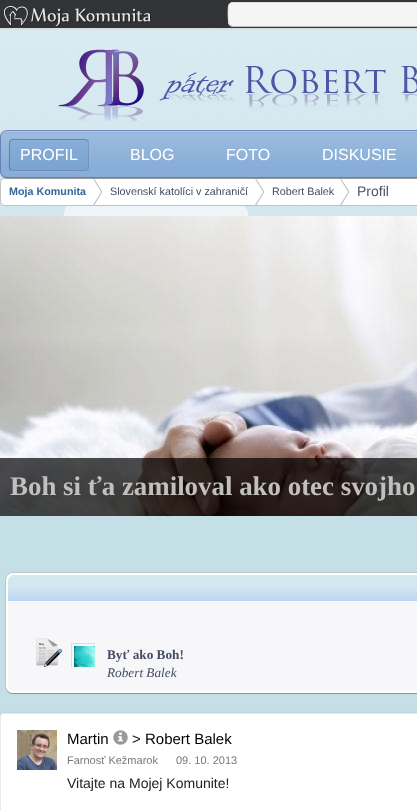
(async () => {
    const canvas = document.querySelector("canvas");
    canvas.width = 417;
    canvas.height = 810;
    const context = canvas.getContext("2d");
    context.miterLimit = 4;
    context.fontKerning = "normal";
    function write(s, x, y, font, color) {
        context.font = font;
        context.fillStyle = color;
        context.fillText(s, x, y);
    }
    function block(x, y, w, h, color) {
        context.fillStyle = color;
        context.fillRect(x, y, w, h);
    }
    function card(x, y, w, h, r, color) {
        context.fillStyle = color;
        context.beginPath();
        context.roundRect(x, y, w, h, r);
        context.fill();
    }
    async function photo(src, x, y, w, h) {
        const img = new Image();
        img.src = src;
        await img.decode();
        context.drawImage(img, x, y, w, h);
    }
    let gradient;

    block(0, 0, 417, 810, "rgb(50, 51, 53)");
    block(0, 28, 417, 2, "rgb(221, 221, 221)");
    await photo("media/1.png", 4, 6, 147, 21);
    card(228, 2, 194, 25, 5, "rgb(245, 245, 245)");
    context.beginPath();
    context.moveTo(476, 4);
    context.bezierCurveTo(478.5, 6, 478, 20.5, 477.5, 23);
    context.bezierCurveTo(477, 25, 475, 26.5, 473, 26.5);
    context.lineTo(233, 26.5);
    context.lineTo(230, 25);
    context.strokeStyle = "rgb(191, 191, 191)";
    context.stroke();
    context.beginPath();
    context.moveTo(230, 25);
    context.bezierCurveTo(227.5, 23, 228, 8.5, 228.5, 6);
    context.bezierCurveTo(229, 4, 231, 2.5, 233, 2.5);
    context.lineTo(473, 2.5);
    context.lineTo(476, 4);
    context.strokeStyle = "rgb(222, 222, 222)";
    context.stroke();
    block(0, 516, 417, 200, "rgb(196, 223, 230)");
    await photo("media/2.png", 0, 30, 417, 186);
    await photo("media/3.png", 50, 49, 367, 73);
    context.fillStyle = "rgb(255, 255, 255)";
    context.beginPath();
    context.roundRect(0.5, 178.5, 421, 27, 3.5);
    context.fill();
    context.strokeStyle = "rgb(192, 194, 197)";
    context.stroke();
    await photo("media/5.png", 93, 179, 9, 26);
    await photo("media/5.png", 255, 179, 9, 26);
    await photo("media/5.png", 340, 179, 9, 26);
    context.fillStyle = "rgba(0, 0, 2, 0.2)";
    context.filter = "blur(0.5px)";
    context.beginPath();
    context.roundRect(0, 131, 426, 48, 7);
    context.fill();
    context.filter = "none";
    await photo("media/4.png", 0, 131, 417, 47);
    context.fillStyle = "rgb(172, 198, 229)";
    context.beginPath();
    context.moveTo(7, 132);
    context.lineTo(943, 132);
    context.bezierCurveTo(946, 132, 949, 135, 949, 138);
    context.lineTo(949, 137);
    context.bezierCurveTo(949, 134, 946, 131, 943, 131);
    context.lineTo(7, 131);
    context.bezierCurveTo(4, 131, 1, 134, 1, 137);
    context.lineTo(1, 138);
    context.bezierCurveTo(1, 135, 4, 132, 7, 132);
    context.closePath();
    context.fill();
    context.beginPath();
    context.roundRect(0.5, 130.5, 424, 47, 6.5);
    context.strokeStyle = "rgba(95, 116, 170, 0.8)";
    context.stroke();
    context.fillStyle = "rgba(253, 253, 255, 0.05)";
    context.beginPath();
    context.moveTo(11, 170);
    context.bezierCurveTo(11, 171, 13, 172, 14, 172);
    context.lineTo(86, 172);
    context.bezierCurveTo(88, 172, 90, 170, 90, 168);
    context.lineTo(90, 144);
    context.bezierCurveTo(90, 143, 89, 141, 88, 141);
    context.lineTo(89, 143);
    context.lineTo(89, 167);
    context.bezierCurveTo(89, 169, 87, 171, 85, 171);
    context.lineTo(13, 171);
    context.closePath();
    context.fill();
    block(9, 139, 80, 32, "rgba(75, 130, 195, 0.2)");
    context.beginPath();
    context.moveTo(87.5, 140.5);
    context.bezierCurveTo(89.5, 143, 88.5, 152, 88.5, 155);
    context.bezierCurveTo(88.5, 173, 91, 170.5, 73, 170.5);
    context.lineTo(13, 170.5);
    context.lineTo(10.5, 169.5);
    context.strokeStyle = "rgba(0, 0, 2, 0.12)";
    context.stroke();
    context.beginPath();
    context.moveTo(10.5, 169.5);
    context.bezierCurveTo(8.5, 167, 9.5, 158, 9.5, 155);
    context.bezierCurveTo(9.5, 137, 7, 139.5, 25, 139.5);
    context.lineTo(85, 139.5);
    context.lineTo(87.5, 140.5);
    context.strokeStyle = "rgba(0, 0, 2, 0.25)";
    context.stroke();
    write("PROFIL", 20, 160, "16px Liberation Sans", "rgb(255, 255, 255)");
    write("BLOG", 130, 160, "16px Liberation Sans", "rgb(255, 255, 255)");
    write("FOTO", 226, 160, "16px Liberation Sans", "rgb(255, 255, 255)");
    write("DISKUSIE", 322, 160, "16px Liberation Sans", "rgb(255, 255, 255)");
    write("Moja Komunita", 9, 195, "bold 10.75px Liberation Sans", "rgb(51, 102, 153)");
    write("Slovenskí katolíci v zahraničí", 110, 195, "10.75px Liberation Sans", "rgb(69, 77, 100)");
    write("Robert Balek", 272, 195, "10.75px Liberation Sans", "rgb(69, 77, 100)");
    write("Profil", 357, 196, "14px Liberation Sans", "rgb(75, 85, 103)");
    await photo("media/6.png", 0, 216, 417, 300);
    block(0, 458, 417, 58, "rgba(0, 0, 0, 0.7)");
    write("Boh si ťa zamiloval ako otec svojho", 10, 495, "bold 26.9px Liberation Serif", "rgb(193, 192, 191)");
    context.fillStyle = "rgba(0, 0, 2, 0.1)";
    context.filter = "blur(0.5px)";
    context.beginPath();
    context.roundRect(6, 574, 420, 120, 7);
    context.fill();
    context.filter = "none";
    context.fillStyle = "rgba(0, 0, 2, 0.15)";
    context.beginPath();
    context.moveTo(6, 686);
    context.bezierCurveTo(6, 690, 8, 694, 13, 694);
    context.lineTo(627, 694);
    context.bezierCurveTo(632, 694, 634, 690, 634, 686);
    context.bezierCurveTo(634, 690, 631, 693, 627, 693);
    context.lineTo(13, 693);
    context.bezierCurveTo(9, 693, 6, 690, 6, 686);
    context.closePath();
    context.fill();
    context.beginPath();
    context.roundRect(5.5, 572.5, 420, 121, 7.5);
    context.strokeStyle = "rgba(0, 0, 2, 0.1)";
    context.stroke();
    context.fillStyle = "rgb(247, 247, 249)";
    context.beginPath();
    context.roundRect(7, 574, 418, 118, 6);
    context.fill();
    context.strokeStyle = "rgb(255, 255, 255)";
    context.lineWidth = 2;
    context.stroke();
    gradient = context.createLinearGradient(320, 575, 320, 601);
    gradient.addColorStop(0, "rgb(213, 233, 237)");
    gradient.addColorStop(0.47, "rgb(208, 230, 242)");
    gradient.addColorStop(1, "rgb(188, 213, 242)");
    context.fillStyle = gradient;
    context.beginPath();
    context.moveTo(15, 575);
    context.lineTo(417, 575);
    context.bezierCurveTo(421, 575, 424, 578, 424, 582);
    context.lineTo(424, 601);
    context.lineTo(8, 601);
    context.lineTo(8, 582);
    context.bezierCurveTo(8, 578, 11, 575, 15, 575);
    context.closePath();
    context.fill();
    await photo("media/7.png", 36, 638, 27, 29);
    context.save();
    context.beginPath();
    context.rect(71, 643, 24, 24);
    context.clip();
    context.strokeStyle = "rgb(221, 221, 221)";
    context.lineWidth = 1;
    context.strokeRect(71.5, 643.5, 125, 84);
    context.restore();
    await photo("media/8.png", 74, 646, 21, 21);
    write("Byť ako Boh!", 107, 659, "bold 13.25px Liberation Serif", "rgb(69, 77, 100)");
    write("Robert Balek", 107, 677, "italic 13.25px Liberation Serif", "rgb(69, 77, 100)");
    context.fillStyle = "rgba(0, 0, 0, 0.2)";
    context.filter = "blur(1.5px)";
    context.beginPath();
    context.roundRect(0, 714, 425, 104, 3);
    context.fill();
    context.filter = "none";
    context.fillStyle = "rgb(255, 255, 255)";
    context.beginPath();
    context.roundRect(0.5, 713.5, 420, 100, 2.5);
    context.fill();
    context.strokeStyle = "rgb(234, 234, 234)";
    context.lineWidth = 1;
    context.stroke();
    await photo("media/9.png", 17, 730, 40, 40);
    write("Martin", 67, 744, "15px Liberation Sans", "rgb(0, 0, 0)");
    await photo("media/10.png", 113, 730, 15, 15);
    write(">", 132, 744, "15px Liberation Sans", "rgb(33, 33, 33)");
    write("Robert Balek", 145, 744, "15px Liberation Sans", "rgb(0, 0, 0)");
    write("Farnosť Kežmarok", 67, 764, "11px Liberation Sans", "rgb(119, 119, 119)");
    write("09. 10. 2013", 176, 764, "11px Liberation Sans", "rgb(119, 119, 119)");
    write("Vitajte na Mojej Komunite!", 67, 788, "14px Liberation Sans", "rgb(33, 33, 33)");
})();
